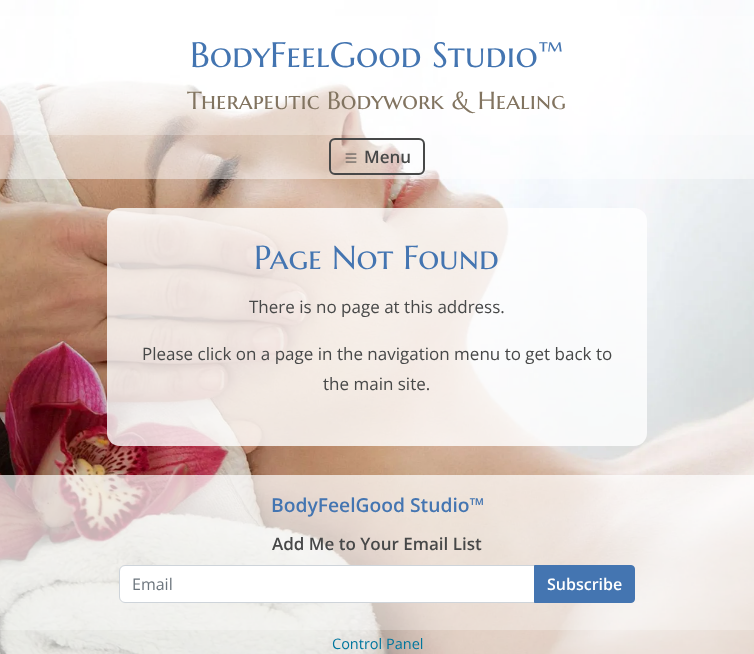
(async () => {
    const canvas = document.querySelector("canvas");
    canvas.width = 754;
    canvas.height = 654;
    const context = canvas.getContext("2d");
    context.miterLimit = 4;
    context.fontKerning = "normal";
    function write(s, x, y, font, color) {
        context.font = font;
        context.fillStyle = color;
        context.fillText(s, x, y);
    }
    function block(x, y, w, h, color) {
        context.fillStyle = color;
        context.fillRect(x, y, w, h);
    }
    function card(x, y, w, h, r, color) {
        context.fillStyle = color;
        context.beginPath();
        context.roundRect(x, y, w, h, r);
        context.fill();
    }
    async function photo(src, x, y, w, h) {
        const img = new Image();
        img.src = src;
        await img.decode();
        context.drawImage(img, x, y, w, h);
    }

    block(0, 0, 754, 654, "rgb(255, 255, 255)");
    await photo("media/1.png", 0, 0, 754, 654);
    block(65, 0, 689, 16, "rgba(255, 255, 255, 0.45)");
    block(0, 16, 754, 119, "rgba(255, 255, 255, 0.6)");
    write("BodyFeelGood Studio™", 190, 67, "35.25px Marcellus SC", "rgb(68, 117, 177)");
    write("Therapeutic Bodywork & Healing", 187, 109, "24.75px Marcellus SC", "rgb(130, 116, 96)");
    block(0, 135, 754, 44, "rgba(255, 255, 255, 0.45)");
    context.beginPath();
    context.roundRect(330, 139, 94, 35, 5);
    context.strokeStyle = "rgb(71, 72, 72)";
    context.lineWidth = 2;
    context.stroke();
    await photo("media/2.png", 345, 153, 12, 10);
    write("Menu", 364, 163, "600 17px Open Sans", "rgb(71, 72, 72)");
    card(107, 208, 540, 238, 13, "rgba(255, 255, 255, 0.8)");
    write("Page Not Found", 254, 269, "33.25px Marcellus SC", "rgb(68, 117, 177)");
    write("There is no page at this address.", 249, 313, "17px Open Sans", "rgb(71, 72, 72)");
    write("Please click on a page in the navigation menu to get back to", 142, 360, "17px Open Sans", "rgb(71, 72, 72)");
    write("the main site.", 323, 390, "17px Open Sans", "rgb(71, 72, 72)");
    block(0, 475, 754, 155, "rgba(255, 255, 255, 0.7)");
    write("BodyFeelGood Studio™", 271, 512, "600 19.25px Open Sans", "rgb(68, 117, 177)");
    write("Add Me to Your Email List", 272, 550, "600 17px Open Sans", "rgb(71, 72, 72)");
    context.fillStyle = "rgb(255, 255, 255)";
    context.beginPath();
    context.roundRect(119.5, 565.5, 415, 37, [5.5, 0, 0, 5.5]);
    context.fill();
    context.strokeStyle = "rgb(206, 212, 218)";
    context.lineWidth = 1;
    context.stroke();
    write("Email", 132, 590, "16px Open Sans", "rgb(108, 117, 125)");
    context.fillStyle = "rgb(68, 117, 177)";
    context.beginPath();
    context.roundRect(534.5, 565.5, 100, 37, [0, 3.5, 3.5, 0]);
    context.fill();
    context.strokeStyle = "rgb(68, 117, 177)";
    context.stroke();
    write("Subscribe", 547, 590, "600 16px Open Sans", "rgb(255, 255, 255)");
    block(0, 630, 754, 24, "rgba(255, 255, 255, 0.6)");
    write("Control Panel", 332, 649, "14.5px Open Sans", "rgb(1, 118, 158)");
})();
